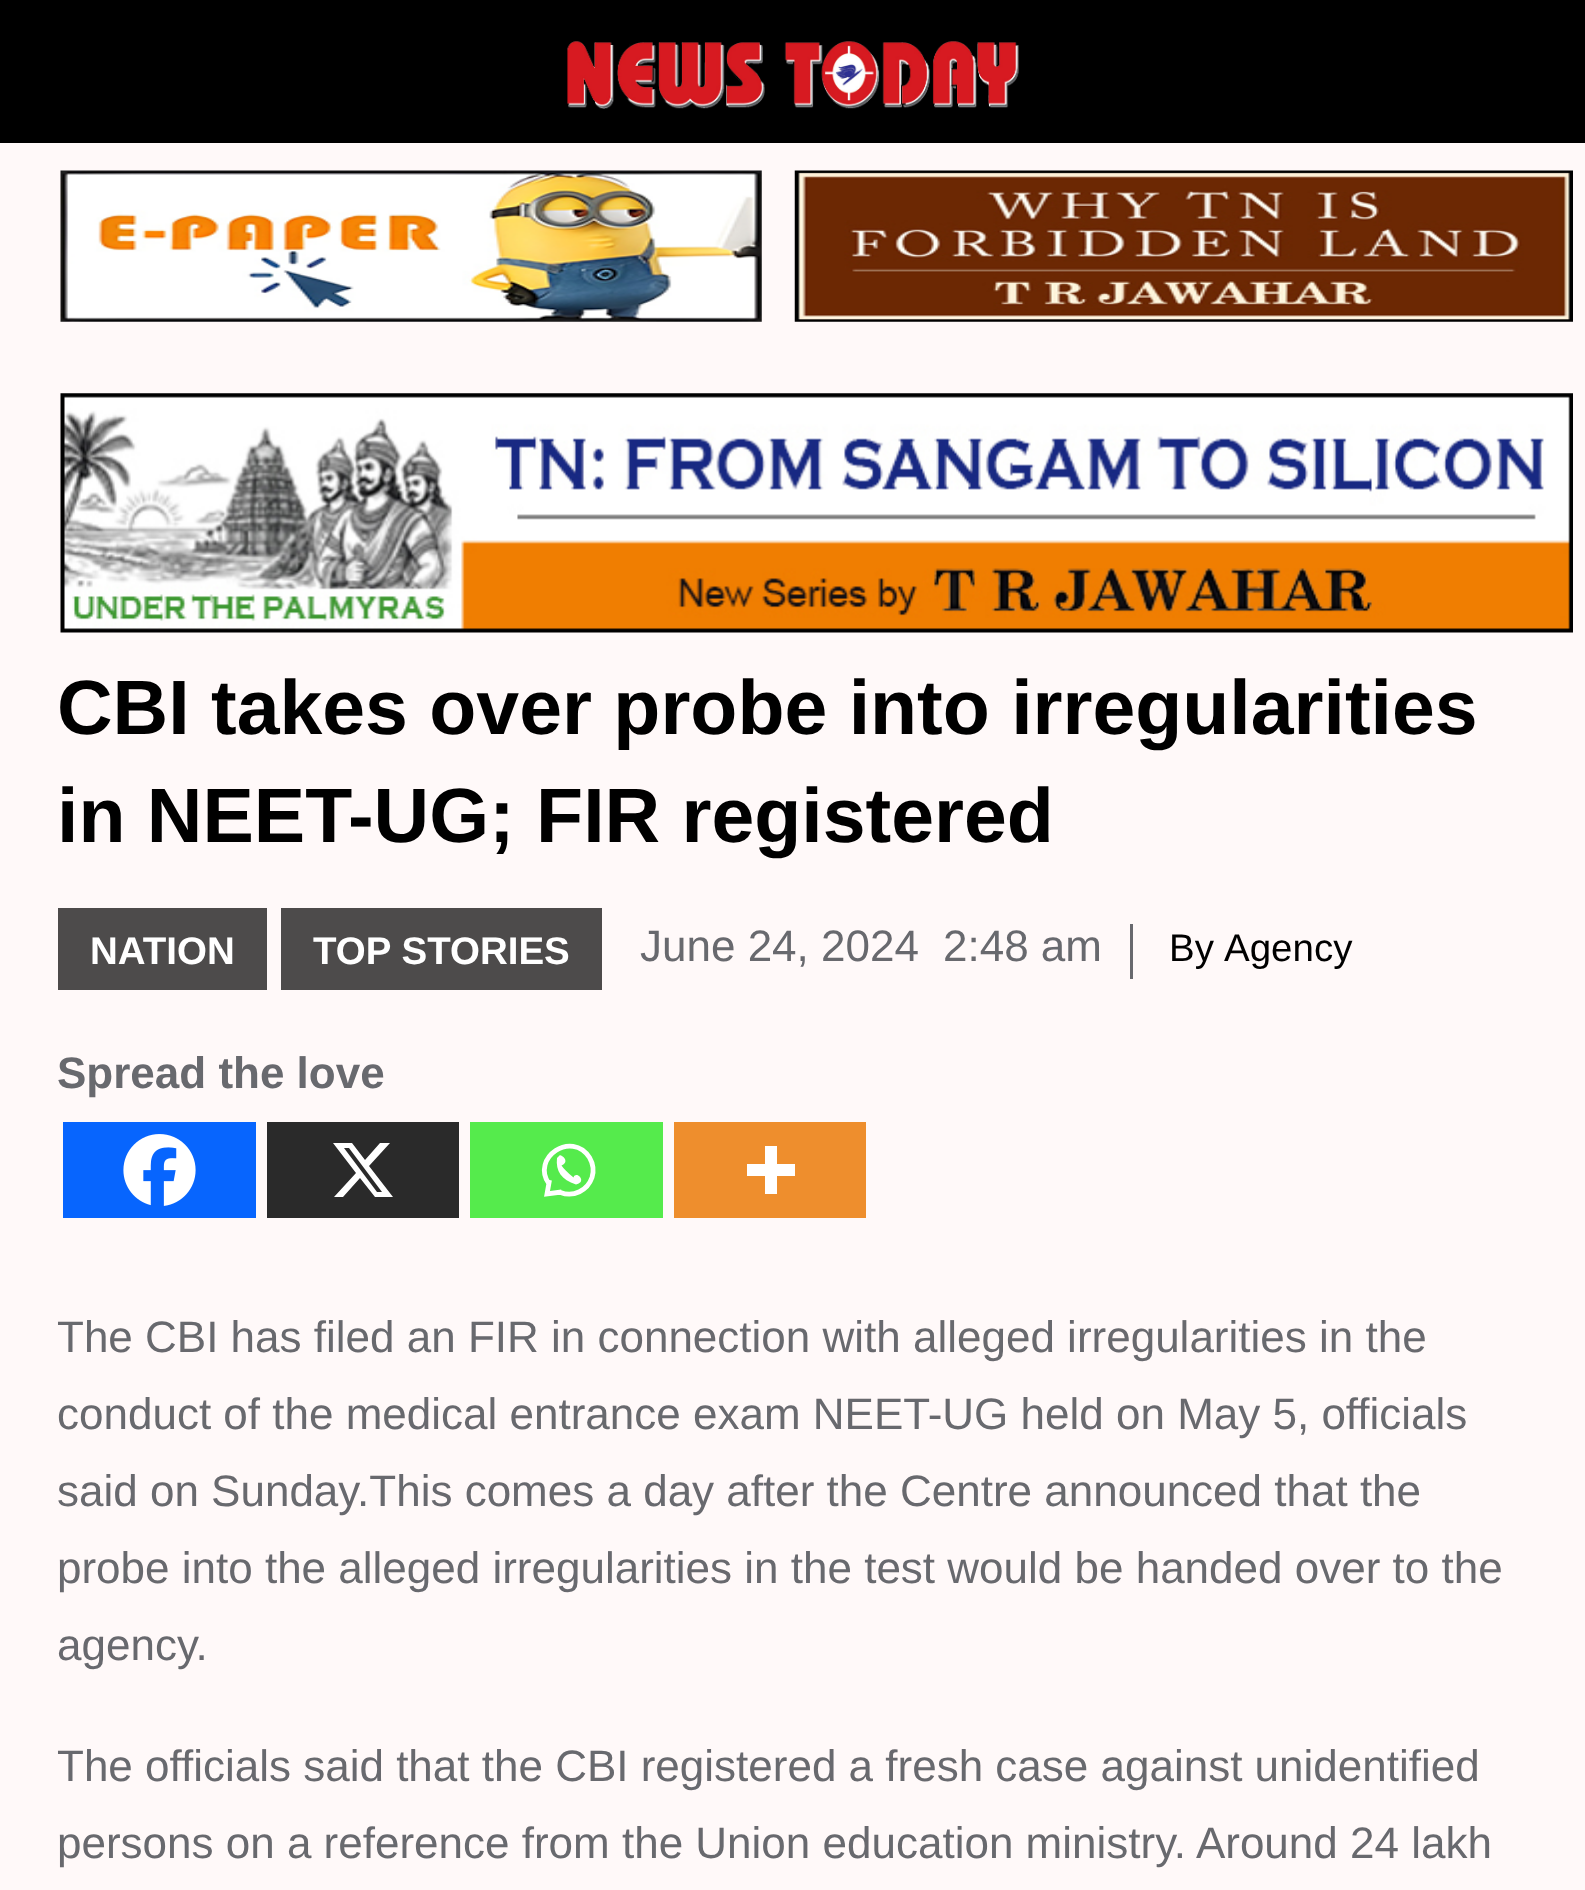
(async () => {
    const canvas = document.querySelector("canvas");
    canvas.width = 1585;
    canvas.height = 1890;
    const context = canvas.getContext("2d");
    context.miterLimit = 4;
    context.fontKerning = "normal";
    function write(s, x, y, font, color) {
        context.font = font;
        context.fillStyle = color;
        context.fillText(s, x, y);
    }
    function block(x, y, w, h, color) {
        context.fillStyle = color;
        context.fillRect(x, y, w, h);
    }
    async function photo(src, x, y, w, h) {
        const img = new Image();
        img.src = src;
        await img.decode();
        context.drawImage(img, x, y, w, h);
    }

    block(0, 0, 1585, 1890, "rgb(255, 249, 249)");
    block(0, 0, 1585, 143, "rgb(0, 0, 0)");
    await photo("media/1.png", 567, 41, 452, 68);
    await photo("media/2.png", 60, 170, 702, 152);
    await photo("media/3.png", 794, 170, 779, 152);
    await photo("media/4.png", 60, 393, 1513, 240);
    write("CBI takes over probe into irregularities", 57, 734, "bold 77px Liberation Sans", "rgb(0, 0, 0)");
    write("in NEET-UG; FIR registered", 57, 842, "bold 77px Liberation Sans", "rgb(0, 0, 0)");
    block(58, 908, 209, 82, "rgb(77, 75, 75)");
    write("NATION", 90, 964, "bold 38.5px Liberation Sans", "rgb(255, 255, 255)");
    block(281, 908, 321, 82, "rgb(77, 75, 75)");
    write("TOP STORIES", 313, 964, "bold 38.5px Liberation Sans", "rgb(255, 255, 255)");
    write("June 24, 2024", 640, 961, "44px Liberation Sans", "rgb(104, 105, 110)");
    write("2:48 am", 943, 961, "44px Liberation Sans", "rgb(104, 105, 110)");
    block(1130, 924, 3, 55, "rgb(104, 105, 110)");
    write("By", 1169, 961, "38.5px Liberation Sans", "rgb(0, 0, 0)");
    write("Agency", 1224, 961, "38.5px Liberation Sans", "rgb(0, 0, 0)");
    write("Spread the love", 57, 1088, "bold 44px Liberation Sans", "rgb(104, 105, 110)");
    block(63, 1122, 193, 96, "rgb(7, 101, 254)");
    await photo("media/5.png", 123, 1134, 73, 72);
    block(267, 1122, 192, 96, "rgb(42, 42, 42)");
    context.fillStyle = "rgb(255, 255, 255)";
    context.beginPath();
    context.moveTo(380, 1143);
    context.lineTo(390, 1143);
    context.lineTo(369, 1166);
    context.lineTo(393, 1197);
    context.lineTo(375, 1197);
    context.lineTo(360, 1178);
    context.lineTo(343, 1197);
    context.lineTo(334, 1197);
    context.lineTo(356, 1173);
    context.lineTo(333, 1143);
    context.lineTo(352, 1143);
    context.lineTo(365, 1160);
    context.closePath();
    context.moveTo(377, 1192);
    context.lineTo(382, 1192);
    context.lineTo(349, 1148);
    context.lineTo(344, 1148);
    context.closePath();
    context.fill();
    block(470, 1122, 193, 96, "rgb(85, 235, 76)");
    context.beginPath();
    context.moveTo(560.5, 1192.5);
    context.bezierCurveTo(573.5, 1197.5, 587.5, 1190.5, 592, 1177.5);
    context.bezierCurveTo(594, 1171, 593, 1163.5, 589.5, 1157.5);
    context.bezierCurveTo(572, 1130, 530.5, 1157.5, 549, 1184);
    context.moveTo(549.5, 1180);
    context.lineTo(547, 1194);
    context.lineTo(561.5, 1192);
    context.strokeStyle = "rgb(255, 255, 255)";
    context.lineWidth = 4.8;
    context.stroke();
    context.fillStyle = "rgb(255, 255, 255)";
    context.beginPath();
    context.moveTo(557, 1158);
    context.bezierCurveTo(555.5, 1171, 561.5, 1180, 576, 1184.5);
    context.bezierCurveTo(588, 1182, 576, 1170, 573.5, 1177.5);
    context.bezierCurveTo(567.5, 1172.5, 563.5, 1168.5, 561.5, 1165.5);
    context.bezierCurveTo(571.5, 1160.5, 559.5, 1153.5, 559.5, 1155.5);
    context.fill();
    block(674, 1122, 192, 96, "rgb(238, 142, 45)");
    context.fillStyle = "rgb(255, 255, 255)";
    context.beginPath();
    context.moveTo(777, 1164);
    context.lineTo(777, 1146);
    context.lineTo(765, 1146);
    context.lineTo(765, 1164);
    context.lineTo(747, 1164);
    context.lineTo(747, 1176);
    context.lineTo(765, 1176);
    context.lineTo(765, 1194);
    context.lineTo(777, 1194);
    context.lineTo(777, 1176);
    context.lineTo(795, 1176);
    context.lineTo(795, 1164);
    context.closePath();
    context.fill("evenodd");
    write("The CBI has filed an FIR in connection with alleged irregularities in the", 57, 1352, "44px Liberation Sans", "rgb(104, 105, 110)");
    write("conduct of the medical entrance exam NEET-UG held on May 5, officials", 57, 1429, "44px Liberation Sans", "rgb(104, 105, 110)");
    write("said on Sunday.This comes a day after the Centre announced that the", 57, 1506, "44px Liberation Sans", "rgb(104, 105, 110)");
    write("probe into the alleged irregularities in the test would be handed over to the", 57, 1583, "44px Liberation Sans", "rgb(104, 105, 110)");
    write("agency.", 57, 1660, "44px Liberation Sans", "rgb(104, 105, 110)");
    write("The officials said that the CBI registered a fresh case against unidentified", 57, 1781, "44px Liberation Sans", "rgb(104, 105, 110)");
    write("persons on a reference from the Union education ministry. Around 24 lakh", 57, 1858, "44px Liberation Sans", "rgb(104, 105, 110)");
})();
